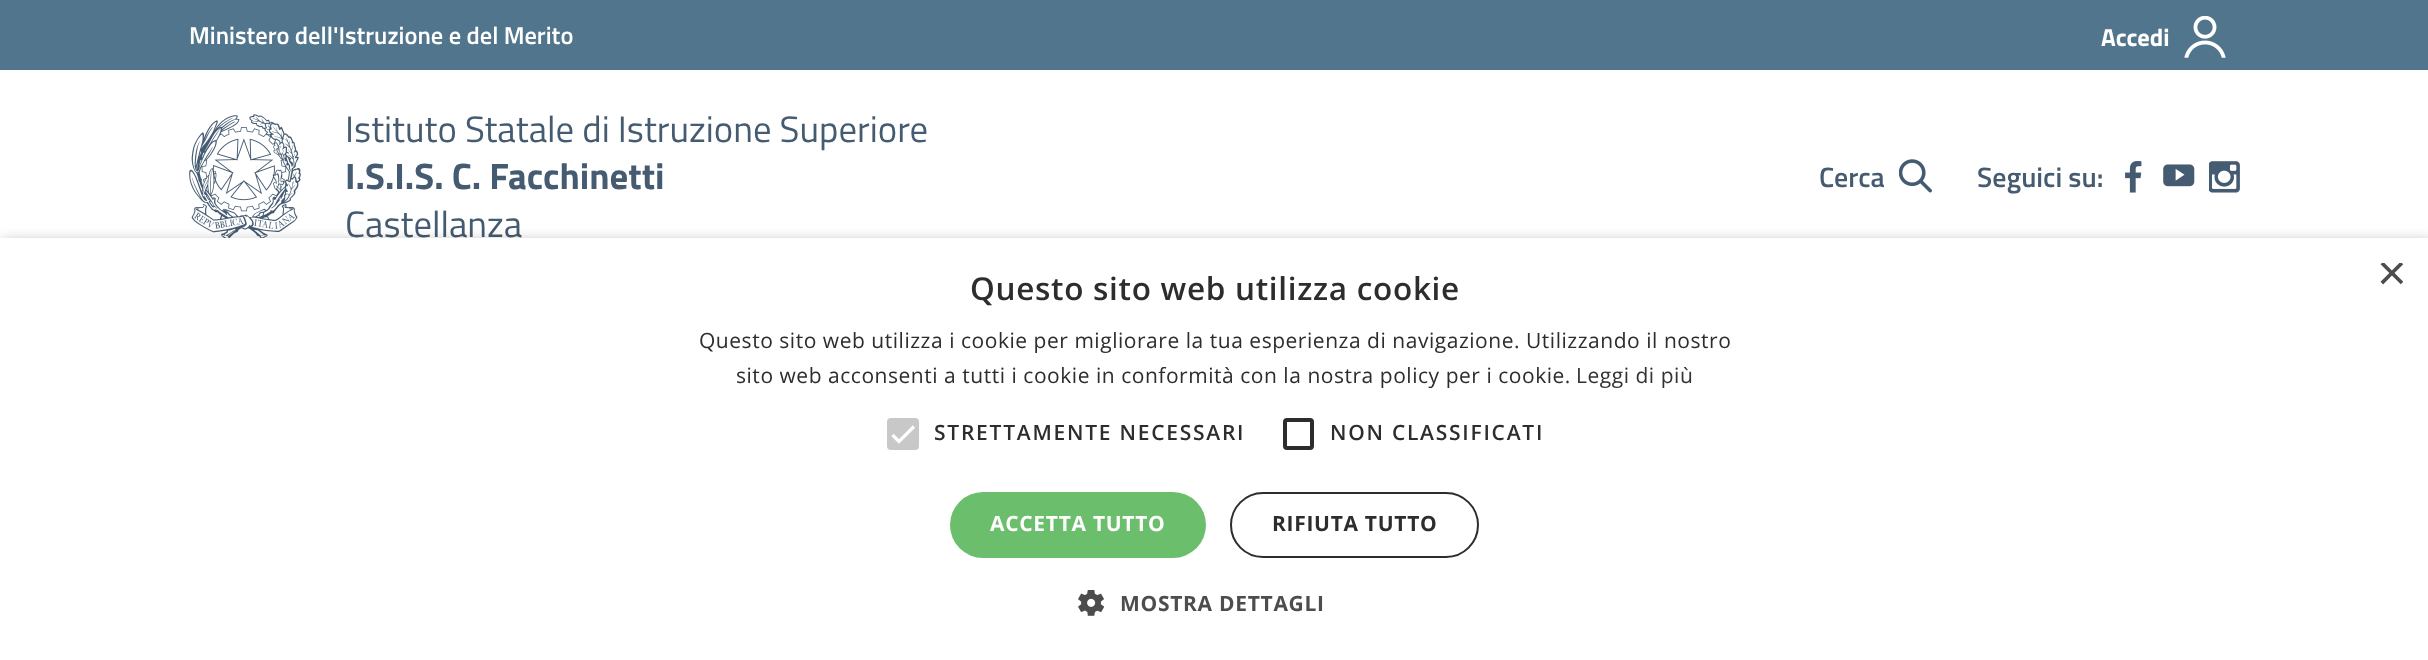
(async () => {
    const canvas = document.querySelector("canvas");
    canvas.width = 2428;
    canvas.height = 660;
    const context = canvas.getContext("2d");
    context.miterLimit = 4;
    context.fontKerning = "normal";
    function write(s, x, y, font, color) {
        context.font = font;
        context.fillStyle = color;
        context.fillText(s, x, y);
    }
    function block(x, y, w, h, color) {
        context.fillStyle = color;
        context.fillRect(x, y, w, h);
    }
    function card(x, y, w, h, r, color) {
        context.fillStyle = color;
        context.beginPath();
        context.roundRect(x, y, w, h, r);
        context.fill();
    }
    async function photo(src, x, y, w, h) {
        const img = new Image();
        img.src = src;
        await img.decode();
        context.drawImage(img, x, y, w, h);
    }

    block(0, 0, 2428, 660, "rgb(255, 255, 255)");
    block(0, 0, 2428, 70, "rgb(81, 117, 141)");
    write("Ministero dell'Istruzione e del Merito", 189, 44, "600 24.5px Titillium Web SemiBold", "rgb(255, 255, 255)");
    write("Accedi", 2101, 46, "bold 24.5px Titillium Web", "rgb(255, 255, 255)");
    await photo("media/1.png", 2184, 16, 42, 42);
    await photo("media/2.png", 189, 114, 112, 124);
    write("Istituto Statale di Istruzione Superiore", 345, 142, "36.75px Titillium Web", "rgb(69, 91, 113)");
    write("I.S.I.S. C. Facchinetti", 345, 189, "bold 36.75px Titillium Web", "rgb(69, 91, 113)");
    write("Castellanza", 345, 237, "36.75px Titillium Web", "rgb(69, 91, 113)");
    write("Cerca", 1819, 187, "600 28px Titillium Web SemiBold", "rgb(69, 91, 113)");
    await photo("media/3.png", 1899, 159, 33, 34);
    write("Seguici su:", 1977, 187, "600 28px Titillium Web SemiBold", "rgb(69, 91, 113)");
    await photo("media/4.png", 2125, 161, 17, 32);
    await photo("media/5.png", 2163, 164, 32, 23);
    await photo("media/6.png", 2209, 161, 31, 32);
    context.fillStyle = "rgba(0, 0, 0, 0.35)";
    context.filter = "blur(7px)";
    context.beginPath();
    context.rect(2, 242, 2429, 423);
    context.fill();
    context.filter = "none";
    block(0, 238, 2428, 422, "rgb(255, 255, 255)");
    context.letterSpacing = "0.7px";
    write("Questo sito web utilizza cookie", 970, 300, "600 31.5px Open Sans", "rgb(45, 45, 45)");
    context.save();
    context.beginPath();
    context.rect(2377, 263, 26, 26);
    context.clip();
    context.letterSpacing = "0px";
    write("×", 2377, 290, "51px Liberation Sans", "rgb(77, 77, 77)");
    context.restore();
    context.letterSpacing = "0.53px";
    write("Questo sito web utilizza i cookie per migliorare la tua esperienza di navigazione. Utilizzando il nostro", 699, 348, "21px Open Sans", "rgb(45, 45, 45)");
    write("sito web acconsenti a tutti i cookie in conformità con la nostra policy per i cookie.", 736, 383, "21px Open Sans", "rgb(45, 45, 45)");
    write("Leggi di più", 1576, 383, "21px Open Sans", "rgb(51, 51, 51)");
    card(887, 418, 32, 32, 4, "rgb(200, 200, 200)");
    context.beginPath();
    context.moveTo(892.5, 435);
    context.lineTo(899, 441.5);
    context.lineTo(914, 426.5);
    context.strokeStyle = "rgb(255, 255, 255)";
    context.lineWidth = 3.2;
    context.stroke();
    context.letterSpacing = "1.75px";
    write("STRETTAMENTE NECESSARI", 934, 440, "600 21px Open Sans", "rgb(45, 45, 45)");
    context.beginPath();
    context.roundRect(1285, 420, 27, 28, 2);
    context.strokeStyle = "rgb(45, 45, 45)";
    context.lineWidth = 4;
    context.stroke();
    write("NON CLASSIFICATI", 1330, 440, "600 21px Open Sans", "rgb(45, 45, 45)");
    card(950, 492, 256, 66, 33, "rgb(107, 190, 107)");
    context.letterSpacing = "0.7px";
    write("ACCETTA TUTTO", 990, 531, "bold 21px Open Sans", "rgb(255, 255, 255)");
    context.beginPath();
    context.roundRect(1231, 493, 247, 64, 32);
    context.lineWidth = 2;
    context.stroke();
    write("RIFIUTA TUTTO", 1272, 531, "bold 21px Open Sans", "rgb(45, 45, 45)");
    await photo("media/7.png", 1078, 590, 26, 26);
    write("MOSTRA DETTAGLI", 1120, 611, "bold 21px Open Sans", "rgb(77, 77, 77)");
})();
